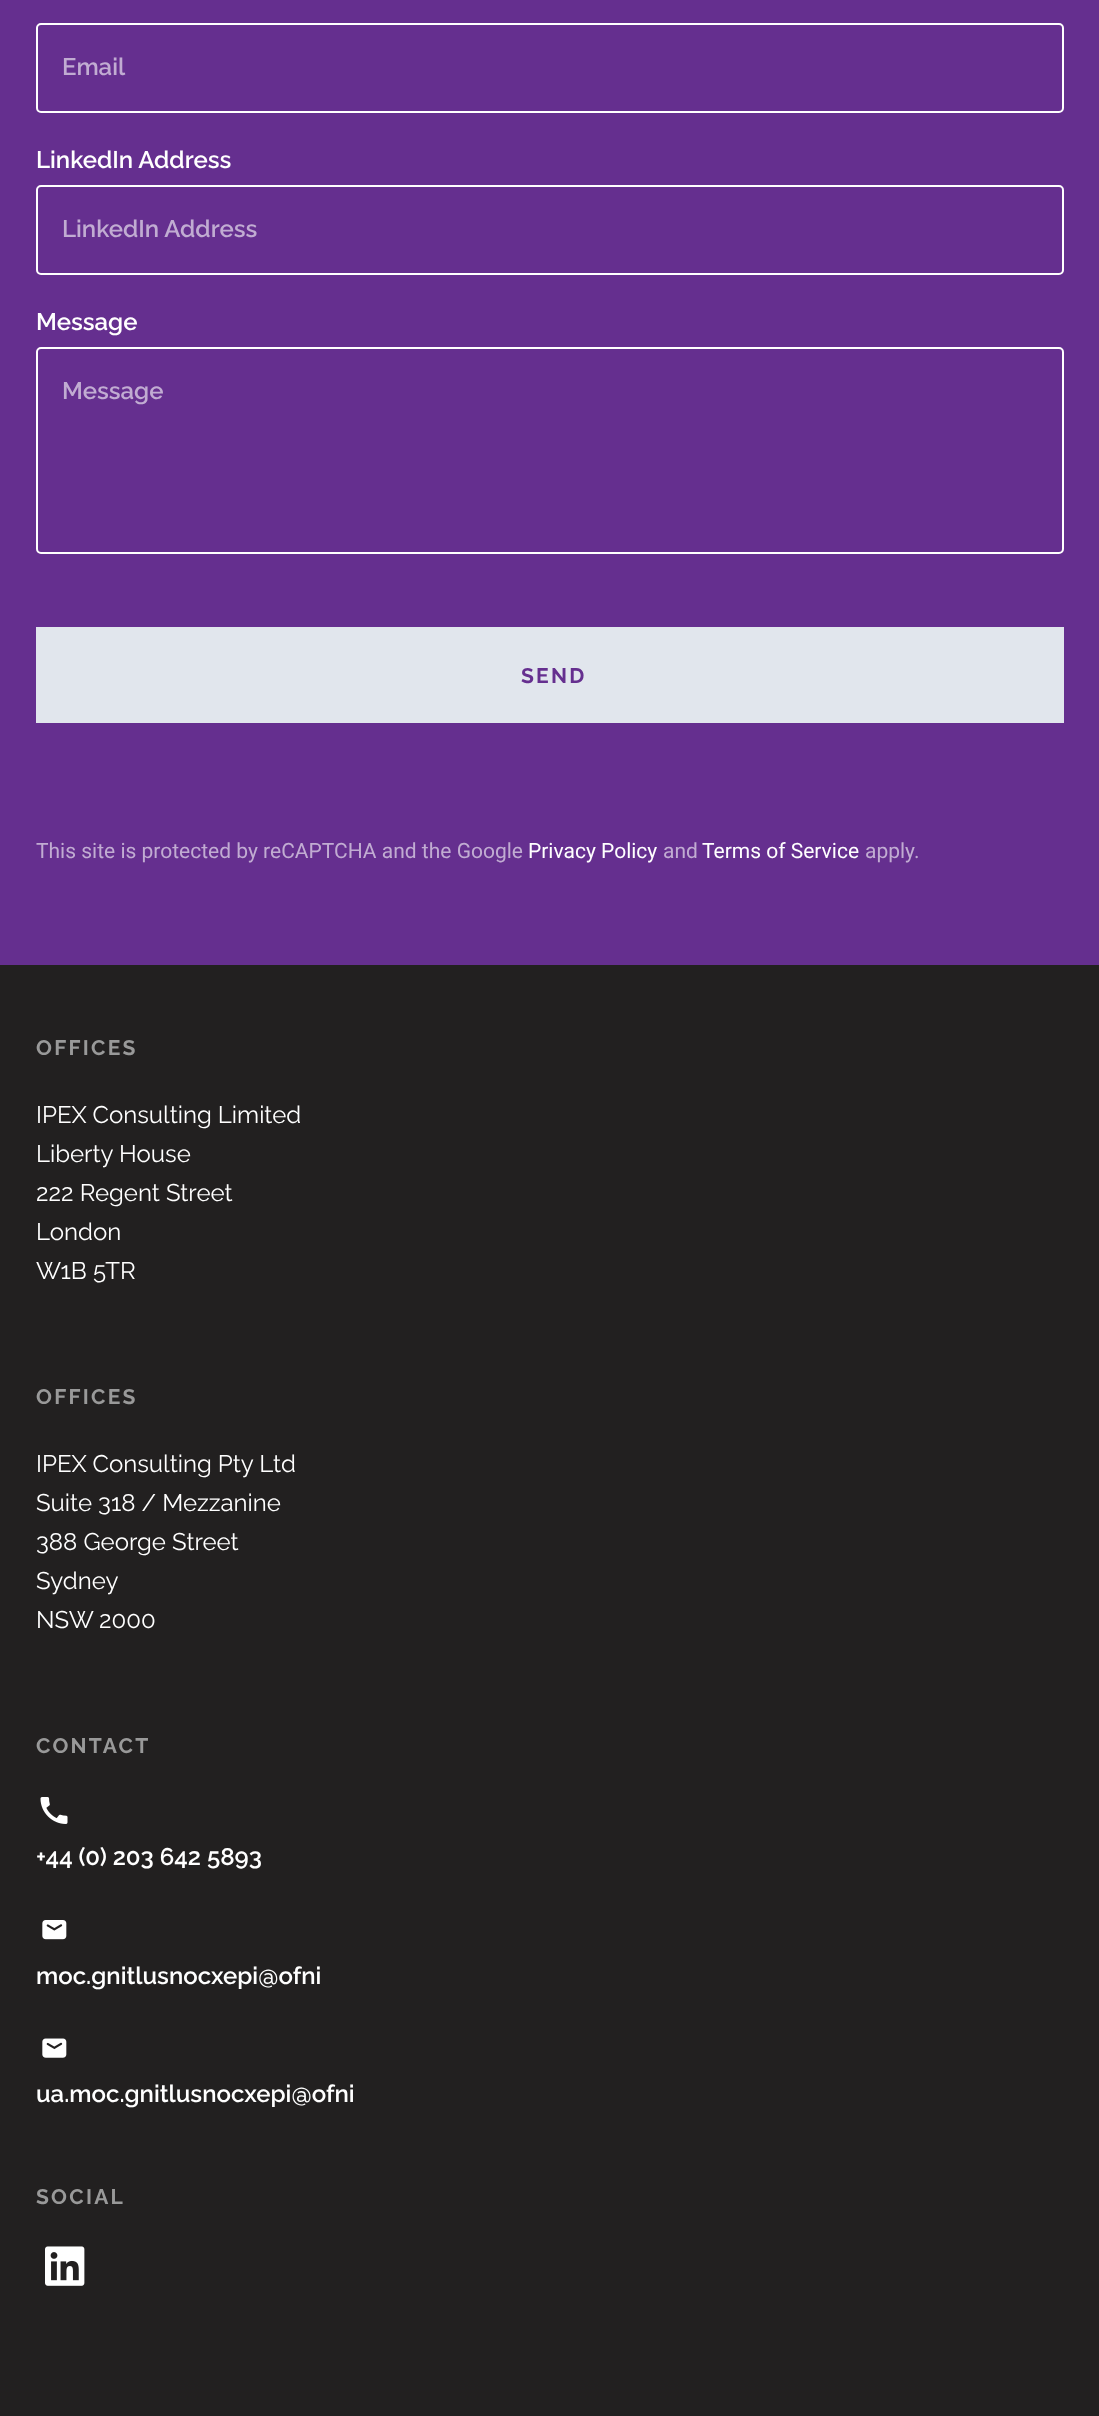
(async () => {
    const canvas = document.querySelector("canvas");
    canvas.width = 1099;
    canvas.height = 2416;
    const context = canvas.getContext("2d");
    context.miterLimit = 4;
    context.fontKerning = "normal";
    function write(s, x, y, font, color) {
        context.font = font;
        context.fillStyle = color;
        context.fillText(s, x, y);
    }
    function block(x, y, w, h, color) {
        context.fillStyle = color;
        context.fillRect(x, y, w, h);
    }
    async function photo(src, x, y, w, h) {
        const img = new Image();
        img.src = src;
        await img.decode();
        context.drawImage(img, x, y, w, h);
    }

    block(0, 0, 1099, 2416, "rgb(101, 47, 143)");
    context.beginPath();
    context.roundRect(37, 24, 1026, 88, 4);
    context.strokeStyle = "rgb(255, 255, 255)";
    context.lineWidth = 2;
    context.stroke();
    write("Email", 62, 75, "600 24px Raleway", "rgb(193, 172, 210)");
    write("LinkedIn Address", 36, 168, "600 24px Raleway", "rgb(255, 255, 255)");
    context.beginPath();
    context.roundRect(37, 186, 1026, 88, 4);
    context.stroke();
    write("LinkedIn Address", 62, 237, "600 24px Raleway", "rgb(193, 172, 210)");
    write("Message", 36, 330, "600 24px Raleway", "rgb(255, 255, 255)");
    context.beginPath();
    context.roundRect(37, 348, 1026, 205, 4);
    context.stroke();
    write("Message", 62, 399, "600 24px Raleway", "rgb(193, 172, 210)");
    block(36, 627, 1028, 96, "rgb(225, 230, 237)");
    context.letterSpacing = "2.25px";
    write("SEND", 521, 683, "bold 21px Raleway", "rgb(101, 47, 143)");
    context.letterSpacing = "0px";
    write("This site is protected by reCAPTCHA and the Google", 36, 858, "21px Roboto", "rgb(193, 172, 210)");
    write("Privacy Policy", 528, 858, "21px Roboto", "rgb(255, 255, 255)");
    write("and", 663, 858, "21px Roboto", "rgb(193, 172, 210)");
    write("Terms of Service", 702, 858, "21px Roboto", "rgb(255, 255, 255)");
    write("apply.", 865, 858, "21px Roboto", "rgb(193, 172, 210)");
    block(0, 965, 1099, 1451, "rgb(34, 32, 32)");
    context.letterSpacing = "2.25px";
    write("OFFICES", 36, 1055, "bold 21px Raleway", "rgb(153, 153, 153)");
    context.letterSpacing = "0px";
    write("IPEX Consulting Limited", 36, 1123, "24px Raleway", "rgb(255, 255, 255)");
    write("Liberty House", 36, 1162, "24px Raleway", "rgb(255, 255, 255)");
    write("222 Regent Street", 36, 1201, "24px Raleway", "rgb(255, 255, 255)");
    write("London", 36, 1240, "24px Raleway", "rgb(255, 255, 255)");
    write("W1B 5TR", 36, 1279, "24px Raleway", "rgb(255, 255, 255)");
    context.letterSpacing = "2.25px";
    write("OFFICES", 36, 1404, "bold 21px Raleway", "rgb(153, 153, 153)");
    context.letterSpacing = "0px";
    write("IPEX Consulting Pty Ltd", 36, 1472, "24px Raleway", "rgb(255, 255, 255)");
    write("Suite 318 / Mezzanine", 36, 1511, "24px Raleway", "rgb(255, 255, 255)");
    write("388 George Street", 36, 1550, "24px Raleway", "rgb(255, 255, 255)");
    write("Sydney", 36, 1589, "24px Raleway", "rgb(255, 255, 255)");
    write("NSW 2000", 36, 1628, "24px Raleway", "rgb(255, 255, 255)");
    context.letterSpacing = "2.25px";
    write("CONTACT", 36, 1753, "bold 21px Raleway", "rgb(153, 153, 153)");
    await photo("media/1.png", 40, 1797, 28, 27);
    context.letterSpacing = "0px";
    write("+44 (0) 203 642 5893", 36, 1865, "600 24px Raleway", "rgb(255, 255, 255)");
    await photo("media/2.png", 42, 1920, 25, 20);
    write("moc.gnitlusnocxepi@ofni", 36, 1984, "600 24px Raleway", "rgb(255, 255, 255)");
    await photo("media/3.png", 42, 2038, 25, 20);
    write("ua.moc.gnitlusnocxepi@ofni", 36, 2102, "600 24px Raleway", "rgb(255, 255, 255)");
    context.letterSpacing = "2.25px";
    write("SOCIAL", 36, 2204, "bold 21px Raleway", "rgb(153, 153, 153)");
    await photo("media/4.png", 45, 2246, 40, 40);
})();
